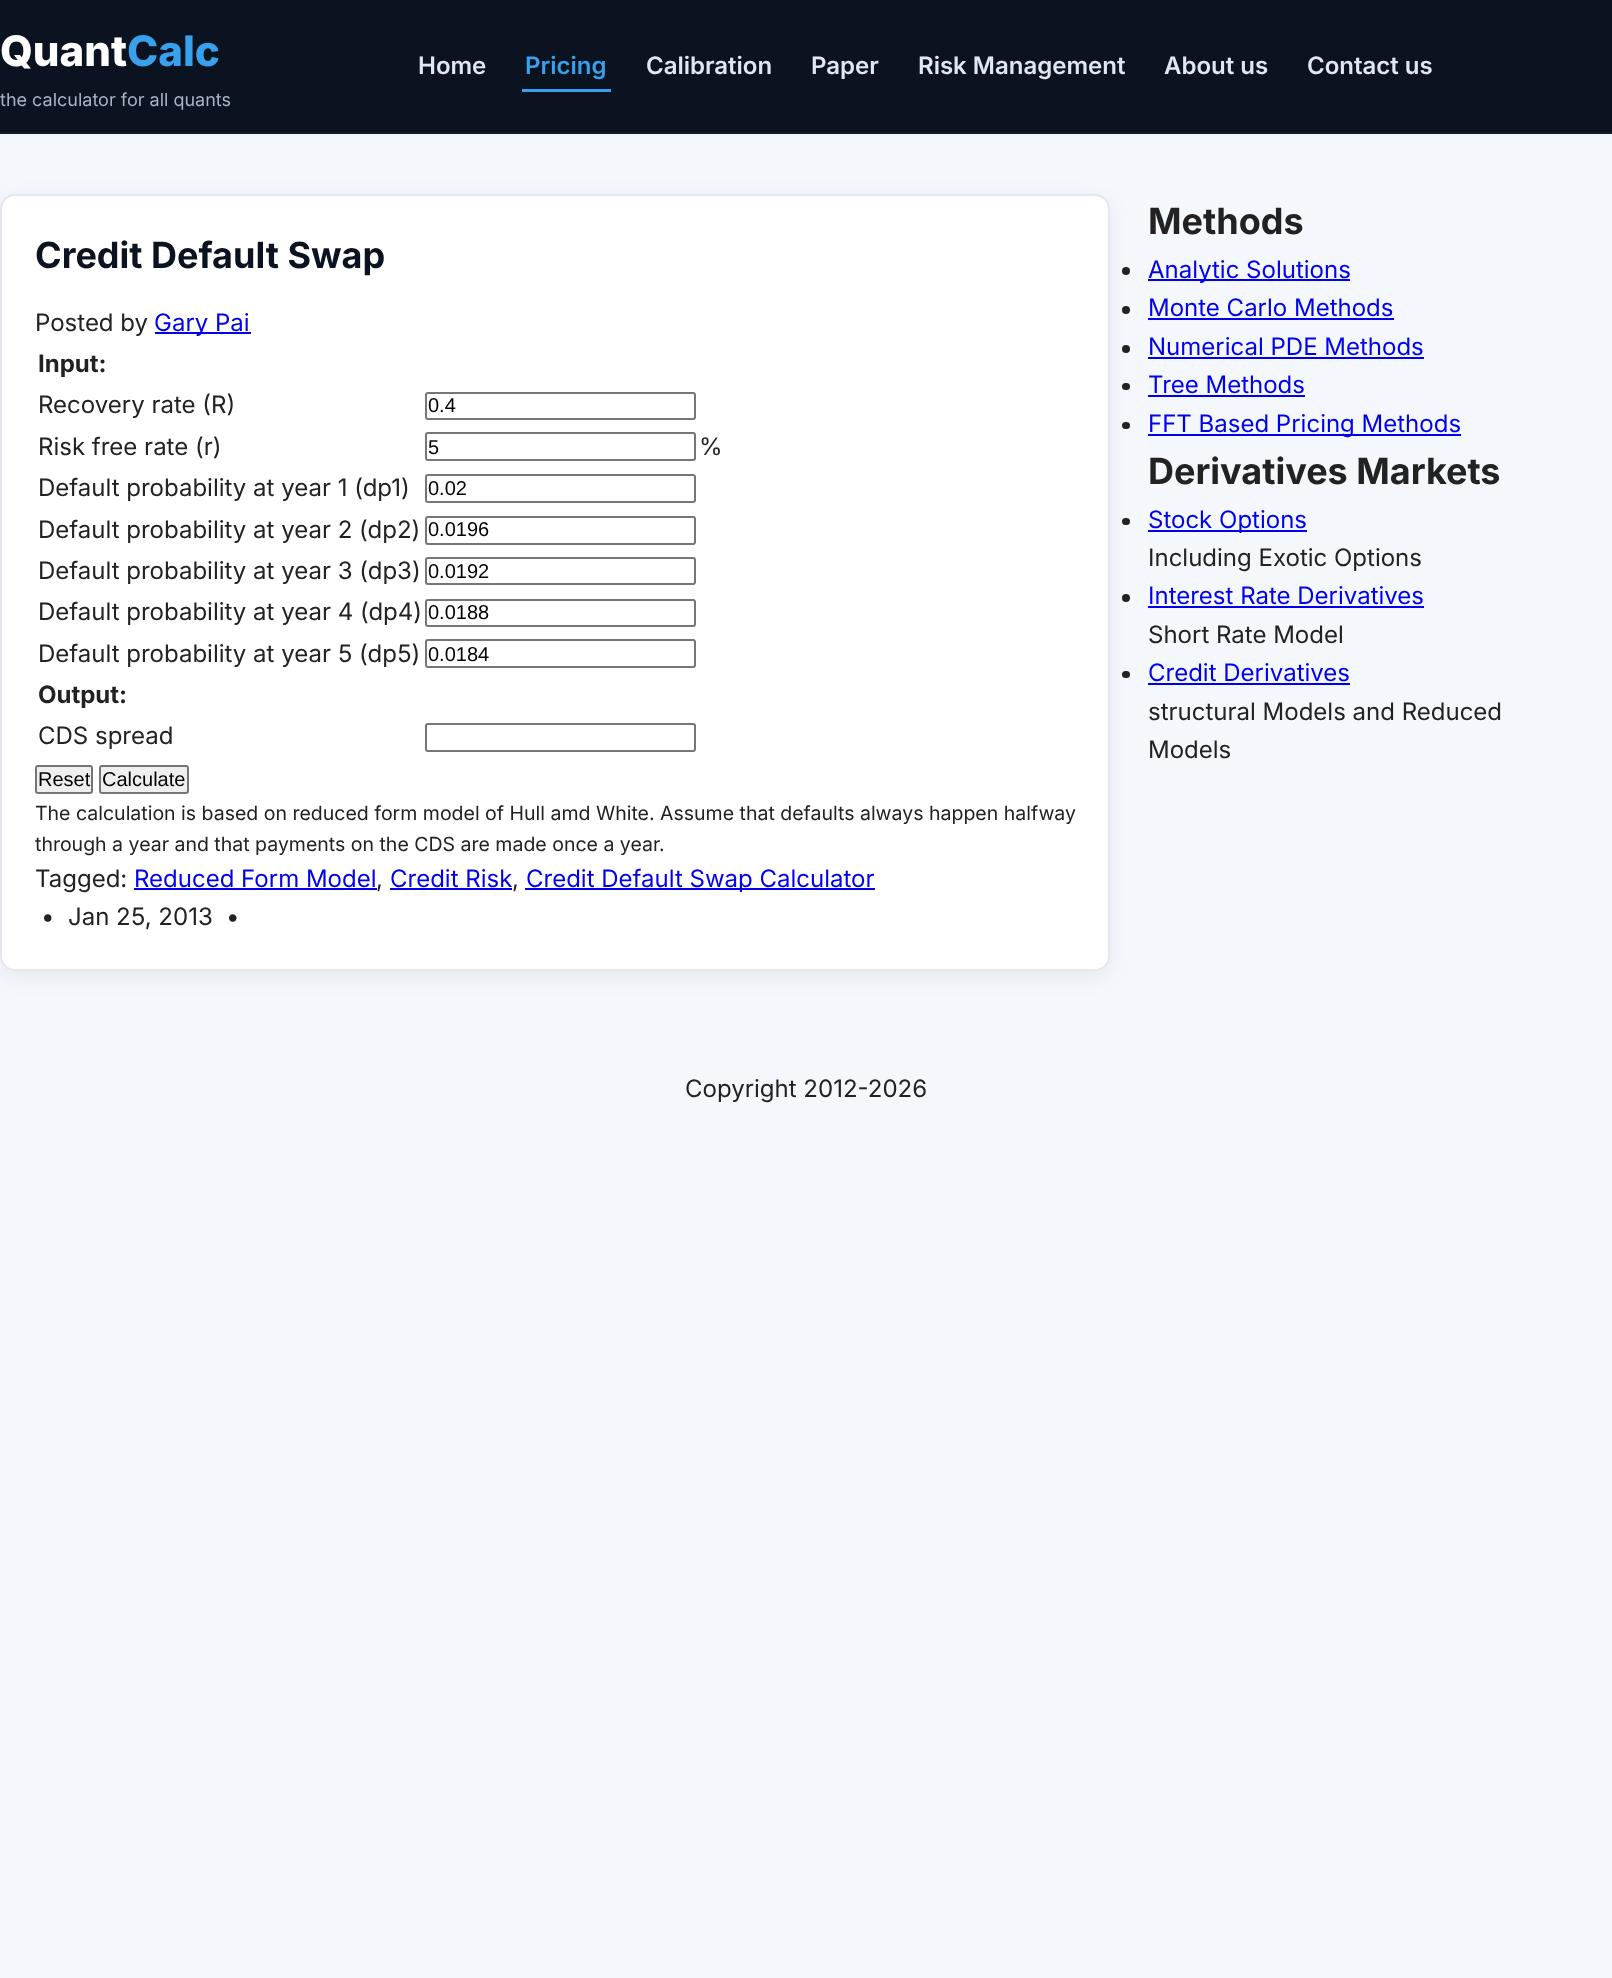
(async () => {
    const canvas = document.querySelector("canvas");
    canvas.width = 1612;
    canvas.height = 1978;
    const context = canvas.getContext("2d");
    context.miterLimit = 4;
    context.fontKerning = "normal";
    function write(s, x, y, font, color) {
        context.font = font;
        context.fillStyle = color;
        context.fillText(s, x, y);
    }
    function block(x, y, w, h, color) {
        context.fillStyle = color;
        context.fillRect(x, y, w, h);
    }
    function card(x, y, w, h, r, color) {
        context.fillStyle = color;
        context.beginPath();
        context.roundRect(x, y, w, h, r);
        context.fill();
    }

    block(0, 0, 1612, 1978, "rgb(244, 247, 251)");
    block(0, 0, 1612, 132, "rgb(11, 18, 32)");
    block(0, 132, 1612, 2, "rgb(17, 26, 51)");
    write("Quant", 0, 66, "800 42px Inter", "rgb(255, 255, 255)");
    write("Calc", 127, 66, "800 42px Inter", "rgb(57, 160, 237)");
    write("the calculator for all quants", 0, 106, "18px Inter", "rgb(170, 180, 198)");
    write("Home", 418, 74, "600 24px Inter", "rgb(223, 231, 241)");
    write("Pricing", 525, 74, "600 24px Inter", "rgb(57, 160, 237)");
    block(522, 89, 89, 3, "rgb(57, 160, 237)");
    write("Calibration", 646, 74, "600 24px Inter", "rgb(223, 231, 241)");
    write("Paper", 811, 74, "600 24px Inter", "rgb(223, 231, 241)");
    write("Risk Management", 918, 74, "600 24px Inter", "rgb(223, 231, 241)");
    write("About us", 1164, 74, "600 24px Inter", "rgb(223, 231, 241)");
    write("Contact us", 1307, 74, "600 24px Inter", "rgb(223, 231, 241)");
    context.fillStyle = "rgba(0, 0, 0, 0.06)";
    context.filter = "blur(10.5px)";
    context.beginPath();
    context.roundRect(0, 200, 1110, 777, 15);
    context.fill();
    context.filter = "none";
    context.fillStyle = "rgb(255, 255, 255)";
    context.beginPath();
    context.roundRect(1, 195, 1108, 775, 14);
    context.fill();
    context.strokeStyle = "rgb(227, 232, 239)";
    context.lineWidth = 2;
    context.stroke();
    write("Credit Default Swap", 35, 268, "bold 36px Inter", "rgb(11, 18, 32)");
    write("Posted by", 35, 331, "24px Inter", "rgb(34, 34, 34)");
    block(155, 332, 96, 2, "rgb(0, 0, 238)");
    write("Gary Pai", 154, 331, "24px Inter", "rgb(0, 0, 238)");
    write("Input:", 38, 372, "bold 24px Inter", "rgb(34, 34, 34)");
    write("Recovery rate (R)", 38, 413, "24px Inter", "rgb(34, 34, 34)");
    context.beginPath();
    context.roundRect(426, 393, 269, 26, 2);
    context.strokeStyle = "rgb(118, 118, 118)";
    context.stroke();
    write("0.4", 428, 412, "20px Liberation Sans", "rgb(0, 0, 0)");
    write("Risk free rate (r)", 38, 455, "24px Inter", "rgb(34, 34, 34)");
    context.beginPath();
    context.roundRect(426, 433, 269, 27, 2);
    context.stroke();
    write("5", 428, 454, "20px Liberation Sans", "rgb(0, 0, 0)");
    write("%", 699, 455, "24px Inter", "rgb(34, 34, 34)");
    write("Default probability at year 1 (dp1)", 38, 496, "24px Inter", "rgb(34, 34, 34)");
    context.beginPath();
    context.roundRect(426, 475, 269, 27, 2);
    context.stroke();
    write("0.02", 428, 495, "20px Liberation Sans", "rgb(0, 0, 0)");
    write("Default probability at year 2 (dp2)", 38, 538, "24px Inter", "rgb(34, 34, 34)");
    context.beginPath();
    context.roundRect(426, 517, 269, 27, 2);
    context.stroke();
    write("0.0196", 428, 536, "20px Liberation Sans", "rgb(0, 0, 0)");
    write("Default probability at year 3 (dp3)", 38, 579, "24px Inter", "rgb(34, 34, 34)");
    context.beginPath();
    context.roundRect(426, 558, 269, 26, 2);
    context.stroke();
    write("0.0192", 428, 578, "20px Liberation Sans", "rgb(0, 0, 0)");
    write("Default probability at year 4 (dp4)", 38, 620, "24px Inter", "rgb(34, 34, 34)");
    context.beginPath();
    context.roundRect(426, 600, 269, 26, 2);
    context.stroke();
    write("0.0188", 428, 619, "20px Liberation Sans", "rgb(0, 0, 0)");
    write("Default probability at year 5 (dp5)", 38, 662, "24px Inter", "rgb(34, 34, 34)");
    context.beginPath();
    context.roundRect(426, 640, 269, 27, 2);
    context.stroke();
    write("0.0184", 428, 661, "20px Liberation Sans", "rgb(0, 0, 0)");
    write("Output:", 38, 703, "bold 24px Inter", "rgb(34, 34, 34)");
    write("CDS spread", 38, 744, "24px Inter", "rgb(34, 34, 34)");
    context.beginPath();
    context.roundRect(426, 724, 269, 27, 2);
    context.stroke();
    context.fillStyle = "rgb(239, 239, 239)";
    context.beginPath();
    context.roundRect(36, 766, 56, 27, 2);
    context.fill();
    context.stroke();
    write("Reset", 38, 786, "20px Liberation Sans", "rgb(0, 0, 0)");
    context.fillStyle = "rgb(239, 239, 239)";
    context.beginPath();
    context.roundRect(100, 766, 88, 27, 2);
    context.fill();
    context.stroke();
    write("Calculate", 102, 786, "20px Liberation Sans", "rgb(0, 0, 0)");
    write("The calculation is based on reduced form model of Hull amd White. Assume that defaults always happen halfway", 35, 820, "19.5px Inter", "rgb(34, 34, 34)");
    write("through a year and that payments on the CDS are made once a year.", 35, 851, "19.5px Inter", "rgb(34, 34, 34)");
    write("Tagged:", 35, 887, "24px Inter", "rgb(34, 34, 34)");
    write("Reduced Form Model", 134, 887, "24px Inter", "rgb(0, 0, 238)");
    block(134, 888, 243, 2, "rgb(0, 0, 238)");
    write(",", 376, 887, "24px Inter", "rgb(34, 34, 34)");
    write("Credit Risk", 390, 887, "24px Inter", "rgb(0, 0, 238)");
    block(390, 888, 122, 2, "rgb(0, 0, 238)");
    write(",", 512, 887, "24px Inter", "rgb(34, 34, 34)");
    block(525, 888, 350, 2, "rgb(0, 0, 238)");
    write("Credit Default Swap Calculator", 526, 887, "24px Inter", "rgb(0, 0, 238)");
    write("•", 41, 925, "24px Inter", "rgb(34, 34, 34)");
    write("Jan 25, 2013", 68, 925, "24px Inter", "rgb(34, 34, 34)");
    write("•", 226, 925, "24px Inter", "rgb(34, 34, 34)");
    write("Methods", 1148, 234, "bold 36px Inter", "rgb(34, 34, 34)");
    context.beginPath();
    context.arc(1126, 271, 4, 0, Math.PI * 2);
    context.fill();
    block(1148, 279, 202, 2, "rgb(0, 0, 238)");
    write("Analytic Solutions", 1148, 278, "24px Inter", "rgb(0, 0, 238)");
    context.fillStyle = "rgb(34, 34, 34)";
    context.beginPath();
    context.arc(1126, 310, 4, 0, Math.PI * 2);
    context.fill();
    write("Monte Carlo Methods", 1148, 316, "24px Inter", "rgb(0, 0, 238)");
    block(1148, 318, 246, 2, "rgb(0, 0, 238)");
    context.fillStyle = "rgb(34, 34, 34)";
    context.beginPath();
    context.arc(1126, 349, 4, 0, Math.PI * 2);
    context.fill();
    write("Numerical PDE Methods", 1148, 355, "24px Inter", "rgb(0, 0, 238)");
    block(1148, 357, 276, 2, "rgb(0, 0, 238)");
    card(1122, 383, 8, 7, 3.5, "rgb(34, 34, 34)");
    write("Tree Methods", 1148, 393, "24px Inter", "rgb(0, 0, 238)");
    block(1148, 395, 157, 2, "rgb(0, 0, 238)");
    card(1122, 422, 8, 7, 3.5, "rgb(34, 34, 34)");
    block(1148, 434, 313, 2, "rgb(0, 0, 238)");
    write("FFT Based Pricing Methods", 1148, 432, "24px Inter", "rgb(0, 0, 238)");
    write("Derivatives Markets", 1148, 484, "bold 36px Inter", "rgb(34, 34, 34)");
    card(1122, 518, 8, 7, 3.5, "rgb(34, 34, 34)");
    block(1148, 530, 159, 2, "rgb(0, 0, 238)");
    write("Stock Options", 1148, 528, "24px Inter", "rgb(0, 0, 238)");
    write("Including Exotic Options", 1148, 566, "24px Inter", "rgb(34, 34, 34)");
    context.beginPath();
    context.arc(1126, 598, 4, 0, Math.PI * 2);
    context.fill();
    write("Interest Rate Derivatives", 1148, 604, "24px Inter", "rgb(0, 0, 238)");
    block(1148, 606, 276, 2, "rgb(0, 0, 238)");
    write("Short Rate Model", 1148, 643, "24px Inter", "rgb(34, 34, 34)");
    card(1122, 671, 8, 7, 3.5, "rgb(34, 34, 34)");
    write("Credit Derivatives", 1148, 681, "24px Inter", "rgb(0, 0, 238)");
    block(1148, 683, 202, 2, "rgb(0, 0, 238)");
    write("structural Models and Reduced", 1148, 720, "24px Inter", "rgb(34, 34, 34)");
    write("Models", 1148, 758, "24px Inter", "rgb(34, 34, 34)");
    write("Copyright 2012-2026", 685, 1097, "24px Inter", "rgb(34, 34, 34)");
})();
